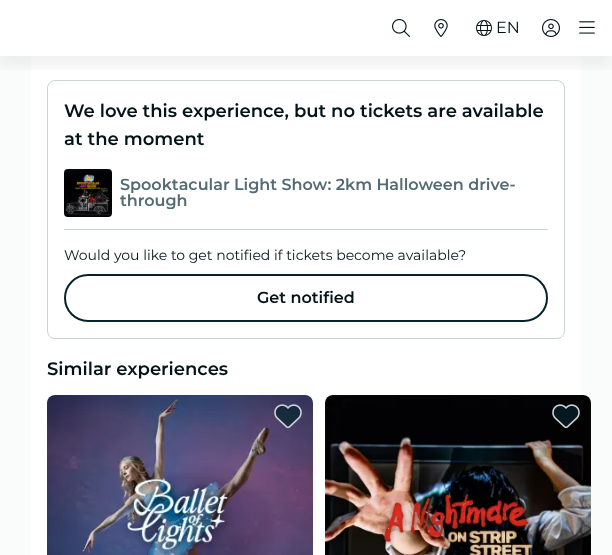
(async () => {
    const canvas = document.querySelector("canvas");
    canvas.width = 612;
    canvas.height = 555;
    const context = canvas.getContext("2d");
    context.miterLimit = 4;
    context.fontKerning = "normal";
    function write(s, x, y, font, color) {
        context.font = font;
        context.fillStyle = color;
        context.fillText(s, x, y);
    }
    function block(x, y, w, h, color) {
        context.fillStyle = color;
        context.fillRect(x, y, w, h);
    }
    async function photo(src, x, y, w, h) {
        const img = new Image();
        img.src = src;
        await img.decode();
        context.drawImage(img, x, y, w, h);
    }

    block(0, 0, 612, 555, "rgb(255, 255, 255)");
    block(0, 56, 612, 499, "rgb(250, 251, 251)");
    block(31, 56, 550, 499, "rgb(255, 255, 255)");
    context.beginPath();
    context.roundRect(47.5, 80.5, 517, 258, 7.5);
    context.strokeStyle = "rgb(204, 210, 216)";
    context.stroke();
    context.save();
    context.beginPath();
    context.rect(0, 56, 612, 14);
    context.clip();
    context.fillStyle = "rgba(0, 0, 0, 0.05)";
    context.filter = "blur(6px)";
    context.beginPath();
    context.rect(0, 12, 612, 56);
    context.fill();
    context.filter = "none";
    context.restore();
    await photo("media/1.png", 392, 19, 18, 18);
    await photo("media/2.png", 434, 19, 14, 18);
    await photo("media/3.png", 476, 20, 16, 16);
    write("EN", 496, 33, "16px Montserrat", "rgb(3, 20, 25)");
    await photo("media/4.png", 542, 19, 18, 18);
    await photo("media/5.png", 579, 21, 16, 13);
    write("We love this experience, but no tickets are available", 64, 117, "600 18px Montserrat", "rgb(3, 20, 25)");
    write("at the moment", 64, 145, "600 18px Montserrat", "rgb(3, 20, 25)");
    block(64, 229, 484, 1, "rgb(204, 210, 216)");
    await photo("media/6.png", 64, 169, 48, 48);
    write("Spooktacular Light Show: 2km Halloween drive-", 120, 190, "600 16px Montserrat", "rgb(83, 107, 117)");
    context.save();
    context.beginPath();
    context.rect(120, 177, 428, 32);
    context.clip();
    write("through", 120, 206, "600 16px Montserrat", "rgb(83, 107, 117)");
    context.restore();
    write("Would you like to get notified if tickets become available?", 64, 260, "14px Montserrat", "rgb(3, 20, 25)");
    context.beginPath();
    context.roundRect(65, 275, 482, 46, 23);
    context.strokeStyle = "rgb(6, 35, 44)";
    context.lineWidth = 2;
    context.stroke();
    write("Get notified", 257, 303, "600 16px Montserrat", "rgb(3, 20, 25)");
    write("Similar experiences", 47, 375, "600 18px Montserrat", "rgb(3, 20, 25)");
    await photo("media/7.png", 47, 395, 266, 160);
    await photo("media/8.png", 274, 404, 28, 25);
    await photo("media/9.png", 325, 395, 266, 160);
    await photo("media/10.png", 552, 404, 28, 25);
})();
